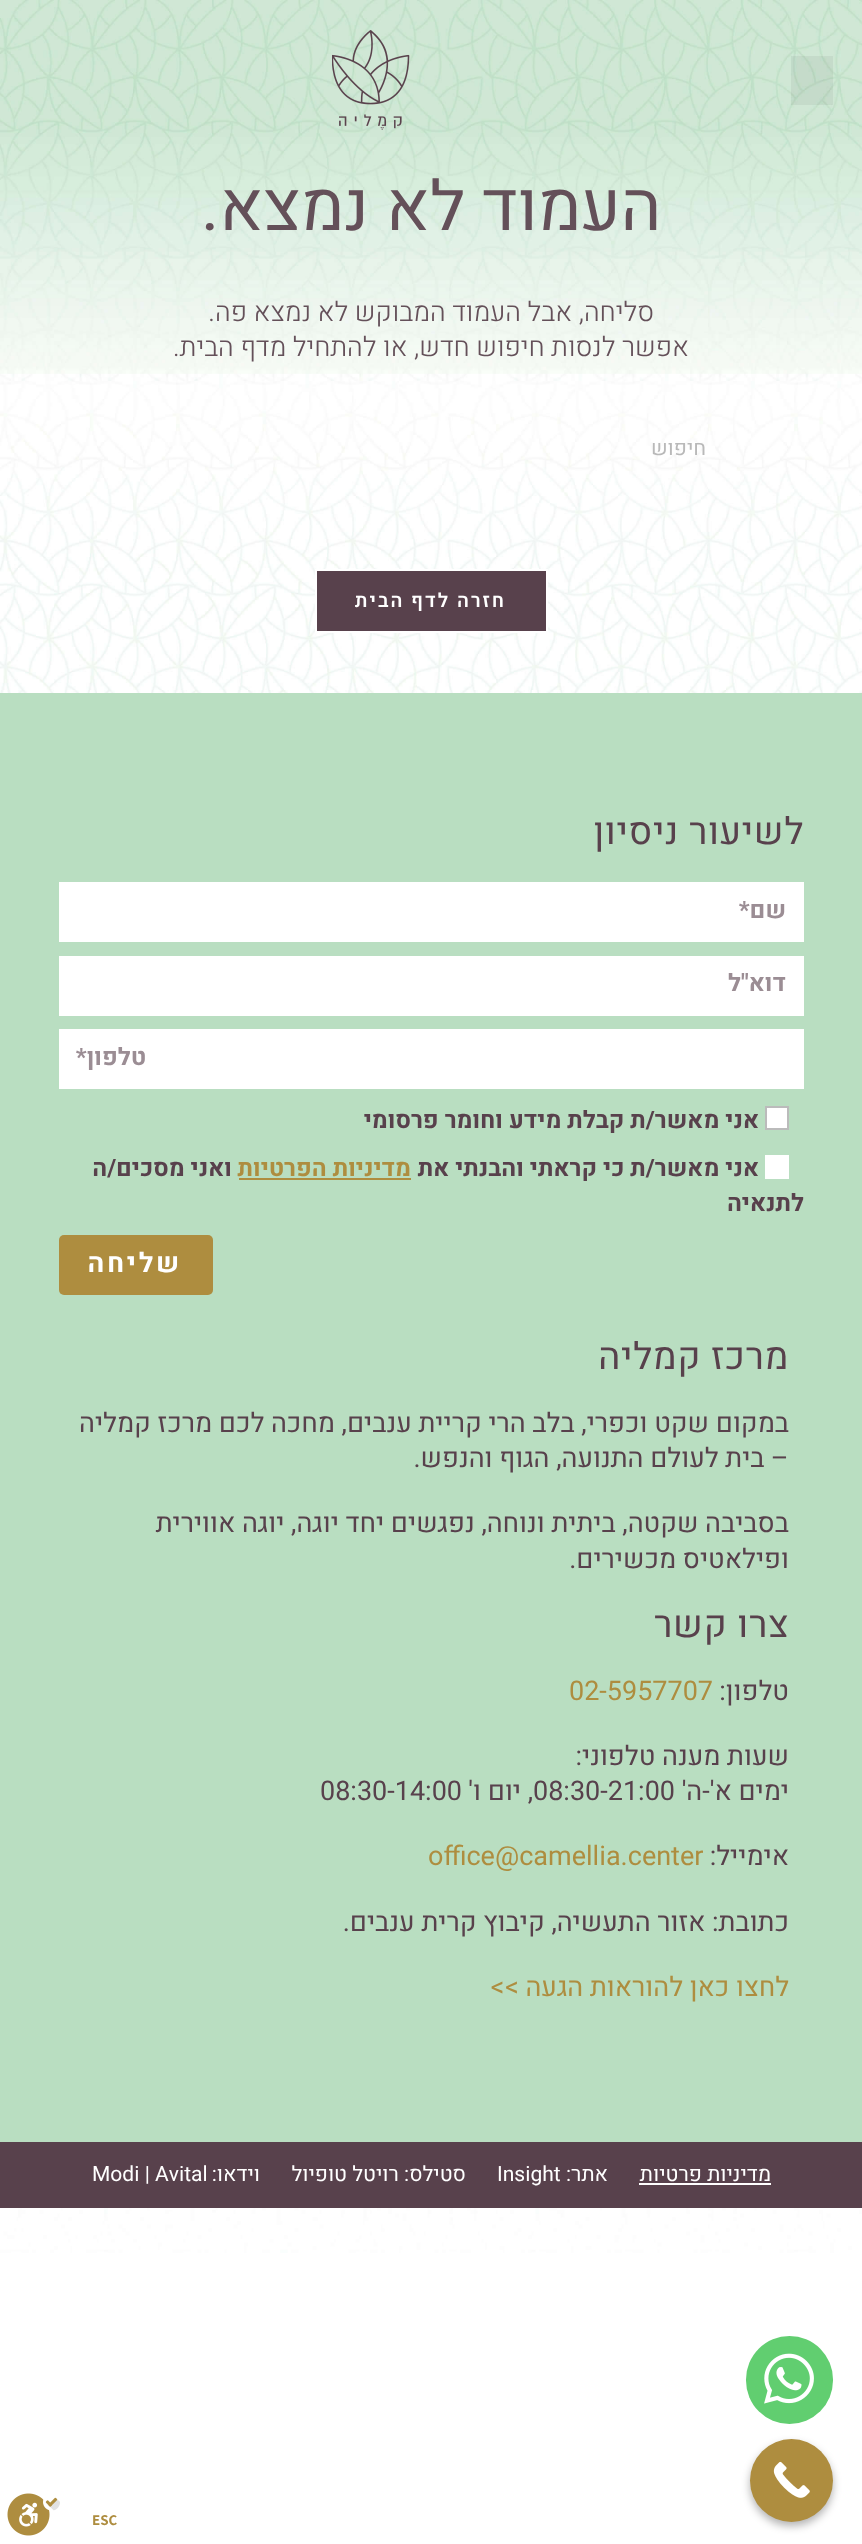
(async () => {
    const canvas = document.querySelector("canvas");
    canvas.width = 862;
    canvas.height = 2544;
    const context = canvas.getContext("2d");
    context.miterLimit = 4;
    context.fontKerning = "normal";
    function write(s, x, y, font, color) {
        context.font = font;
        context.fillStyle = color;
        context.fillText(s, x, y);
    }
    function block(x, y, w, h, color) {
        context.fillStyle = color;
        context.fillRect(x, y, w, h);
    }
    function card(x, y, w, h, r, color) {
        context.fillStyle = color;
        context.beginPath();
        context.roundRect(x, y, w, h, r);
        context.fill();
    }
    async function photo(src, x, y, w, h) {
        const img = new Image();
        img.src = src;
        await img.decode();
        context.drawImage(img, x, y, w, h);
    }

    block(0, 0, 862, 2544, "rgb(255, 255, 255)");
    await photo("media/1.png", 0, 0, 862, 2253);
    block(791, 56, 42, 49, "rgba(0, 0, 0, 0.05)");
    await photo("media/2.png", 332, 30, 78, 100);
    context.letterSpacing = "-0.25px";
    context.direction = "rtl";
    write("העמוד לא נמצא.", 661, 230, "69px Heebo", "rgb(100, 80, 89)");
    context.letterSpacing = "0px";
    write("סליחה, אבל העמוד המבוקש לא נמצא פה.", 654, 321, "300 27px Heebo", "rgb(100, 80, 89)");
    write("אפשר לנסות חיפוש חדש, או להתחיל מדף הבית.", 689, 356, "300 27px Heebo", "rgb(100, 80, 89)");
    write("חיפוש", 706, 455, "21px Heebo", "rgb(185, 185, 185)");
    context.fillStyle = "rgb(88, 65, 76)";
    context.beginPath();
    context.rect(316, 570, 231, 62);
    context.fill();
    context.strokeStyle = "rgb(255, 255, 255)";
    context.lineWidth = 2;
    context.stroke();
    context.letterSpacing = "2px";
    write("חזרה לדף הבית", 506, 607, "600 19.5px Heebo", "rgb(255, 255, 255)");
    block(0, 693, 862, 1449, "rgb(185, 222, 193)");
    context.letterSpacing = "0.6px";
    write("לשיעור ניסיון", 804, 844, "37.5px Heebo", "rgb(88, 65, 76)");
    block(59, 882, 745, 60, "rgb(255, 255, 255)");
    context.letterSpacing = "0px";
    write("שם*", 786, 918, "bold 24px Heebo", "rgb(155, 141, 148)");
    block(59, 956, 745, 60, "rgb(255, 255, 255)");
    write("דוא\"ל", 786, 991, "bold 24px Heebo", "rgb(155, 141, 148)");
    block(59, 1029, 745, 60, "rgb(255, 255, 255)");
    write("טלפון*", 146, 1065, "bold 24px Heebo", "rgb(155, 141, 148)");
    context.fillStyle = "rgb(255, 255, 255)";
    context.beginPath();
    context.rect(766, 1107, 22, 22);
    context.fill();
    context.strokeStyle = "rgb(187, 187, 187)";
    context.stroke();
    write("אני מאשר/ת קבלת מידע וחומר פרסומי", 759, 1128, "bold 24px Heebo", "rgb(88, 65, 76)");
    block(765, 1155, 24, 24, "rgb(255, 255, 255)");
    write("אני מאשר/ת כי קראתי והבנתי את", 759, 1176, "bold 24px Heebo", "rgb(88, 65, 76)");
    write("מדיניות הפרטיות", 411, 1176, "bold 24px Heebo", "rgb(174, 141, 63)");
    block(239, 1178, 172, 2, "rgb(174, 141, 63)");
    write("ואני מסכים/ה", 232, 1176, "bold 24px Heebo", "rgb(88, 65, 76)");
    write("לתנאיה", 804, 1211, "bold 24px Heebo", "rgb(88, 65, 76)");
    card(59, 1235, 154, 60, 5, "rgb(174, 141, 63)");
    context.letterSpacing = "2.75px";
    write("שליחה", 182, 1272, "bold 27px Heebo", "rgb(255, 255, 255)");
    card(746, 2336, 87, 88, 43.5, "rgb(97, 206, 112)");
    await photo("media/3.png", 764, 2353, 50, 51);
    context.letterSpacing = "0.6px";
    write("מרכז קמליה", 789, 1369, "37.5px Heebo", "rgb(88, 65, 76)");
    context.letterSpacing = "0px";
    write("במקום שקט וכפרי, בלב הרי קריית ענבים, מחכה לכם מרכז קמליה", 789, 1432, "27px Heebo", "rgb(88, 65, 76)");
    write("– בית לעולם התנועה, הגוף והנפש.", 789, 1467, "27px Heebo", "rgb(88, 65, 76)");
    write("בסביבה שקטה, ביתית ונוחה, נפגשים יחד יוגה, יוגה אווירית", 789, 1532, "27px Heebo", "rgb(88, 65, 76)");
    write("ופילאטיס מכשירים.", 789, 1568, "27px Heebo", "rgb(88, 65, 76)");
    context.letterSpacing = "0.6px";
    write("צרו קשר", 789, 1637, "37.5px Heebo", "rgb(88, 65, 76)");
    context.letterSpacing = "0px";
    write("טלפון:", 789, 1700, "27px Heebo", "rgb(88, 65, 76)");
    context.direction = "ltr";
    write("02-5957707", 569, 1700, "27px Heebo", "rgb(174, 141, 63)");
    context.direction = "rtl";
    write("שעות מענה טלפוני:", 789, 1765, "27px Heebo", "rgb(88, 65, 76)");
    write("ימים א'-ה'", 789, 1800, "27px Heebo", "rgb(88, 65, 76)");
    context.direction = "ltr";
    write("08:30-21:00", 533, 1800, "27px Heebo", "rgb(88, 65, 76)");
    context.direction = "rtl";
    write(", יום ו'", 533, 1800, "27px Heebo", "rgb(88, 65, 76)");
    context.direction = "ltr";
    write("08:30-14:00", 320, 1800, "27px Heebo", "rgb(88, 65, 76)");
    context.direction = "rtl";
    write("אימייל:", 789, 1865, "27px Heebo", "rgb(88, 65, 76)");
    context.direction = "ltr";
    write("office@camellia.center", 428, 1865, "27px Heebo", "rgb(174, 141, 63)");
    context.direction = "rtl";
    write("כתובת: אזור התעשיה, קיבוץ קרית ענבים.", 789, 1931, "27px Heebo", "rgb(88, 65, 76)");
    write("לחצו כאן להוראות הגעה >>", 789, 1996, "27px Heebo", "rgb(174, 141, 63)");
    block(0, 2142, 862, 66, "rgb(88, 65, 76)");
    write("מדיניות פרטיות", 771, 2181, "21px Heebo", "rgb(255, 255, 255)");
    block(639, 2183, 132, 2, "rgb(255, 255, 255)");
    write("אתר:", 608, 2181, "21px Heebo", "rgb(255, 255, 255)");
    context.direction = "ltr";
    write("Insight", 497, 2181, "21px Heebo", "rgb(255, 255, 255)");
    context.direction = "rtl";
    write("סטילס: רויטל טופיול", 466, 2181, "21px Heebo", "rgb(255, 255, 255)");
    write("וידאו:", 260, 2181, "21px Heebo", "rgb(255, 255, 255)");
    context.direction = "ltr";
    write("Modi | Avital", 92, 2181, "21px Heebo", "rgb(255, 255, 255)");
    context.fillStyle = "rgba(0, 0, 0, 0.3)";
    context.filter = "blur(4.5px)";
    context.beginPath();
    context.roundRect(750, 2444, 83, 82, 41);
    context.fill();
    context.filter = "none";
    context.fillStyle = "rgb(174, 141, 63)";
    context.beginPath();
    context.arc(791.5, 2480.5, 41.5, 0, Math.PI * 2);
    context.fill();
    await photo("media/4.png", 773, 2461, 37, 37);
    write("ESC", 92, 2525, "bold 15px Assistant", "rgb(174, 141, 63)");
    await photo("media/5.png", 7, 2493, 53, 43);
})();
